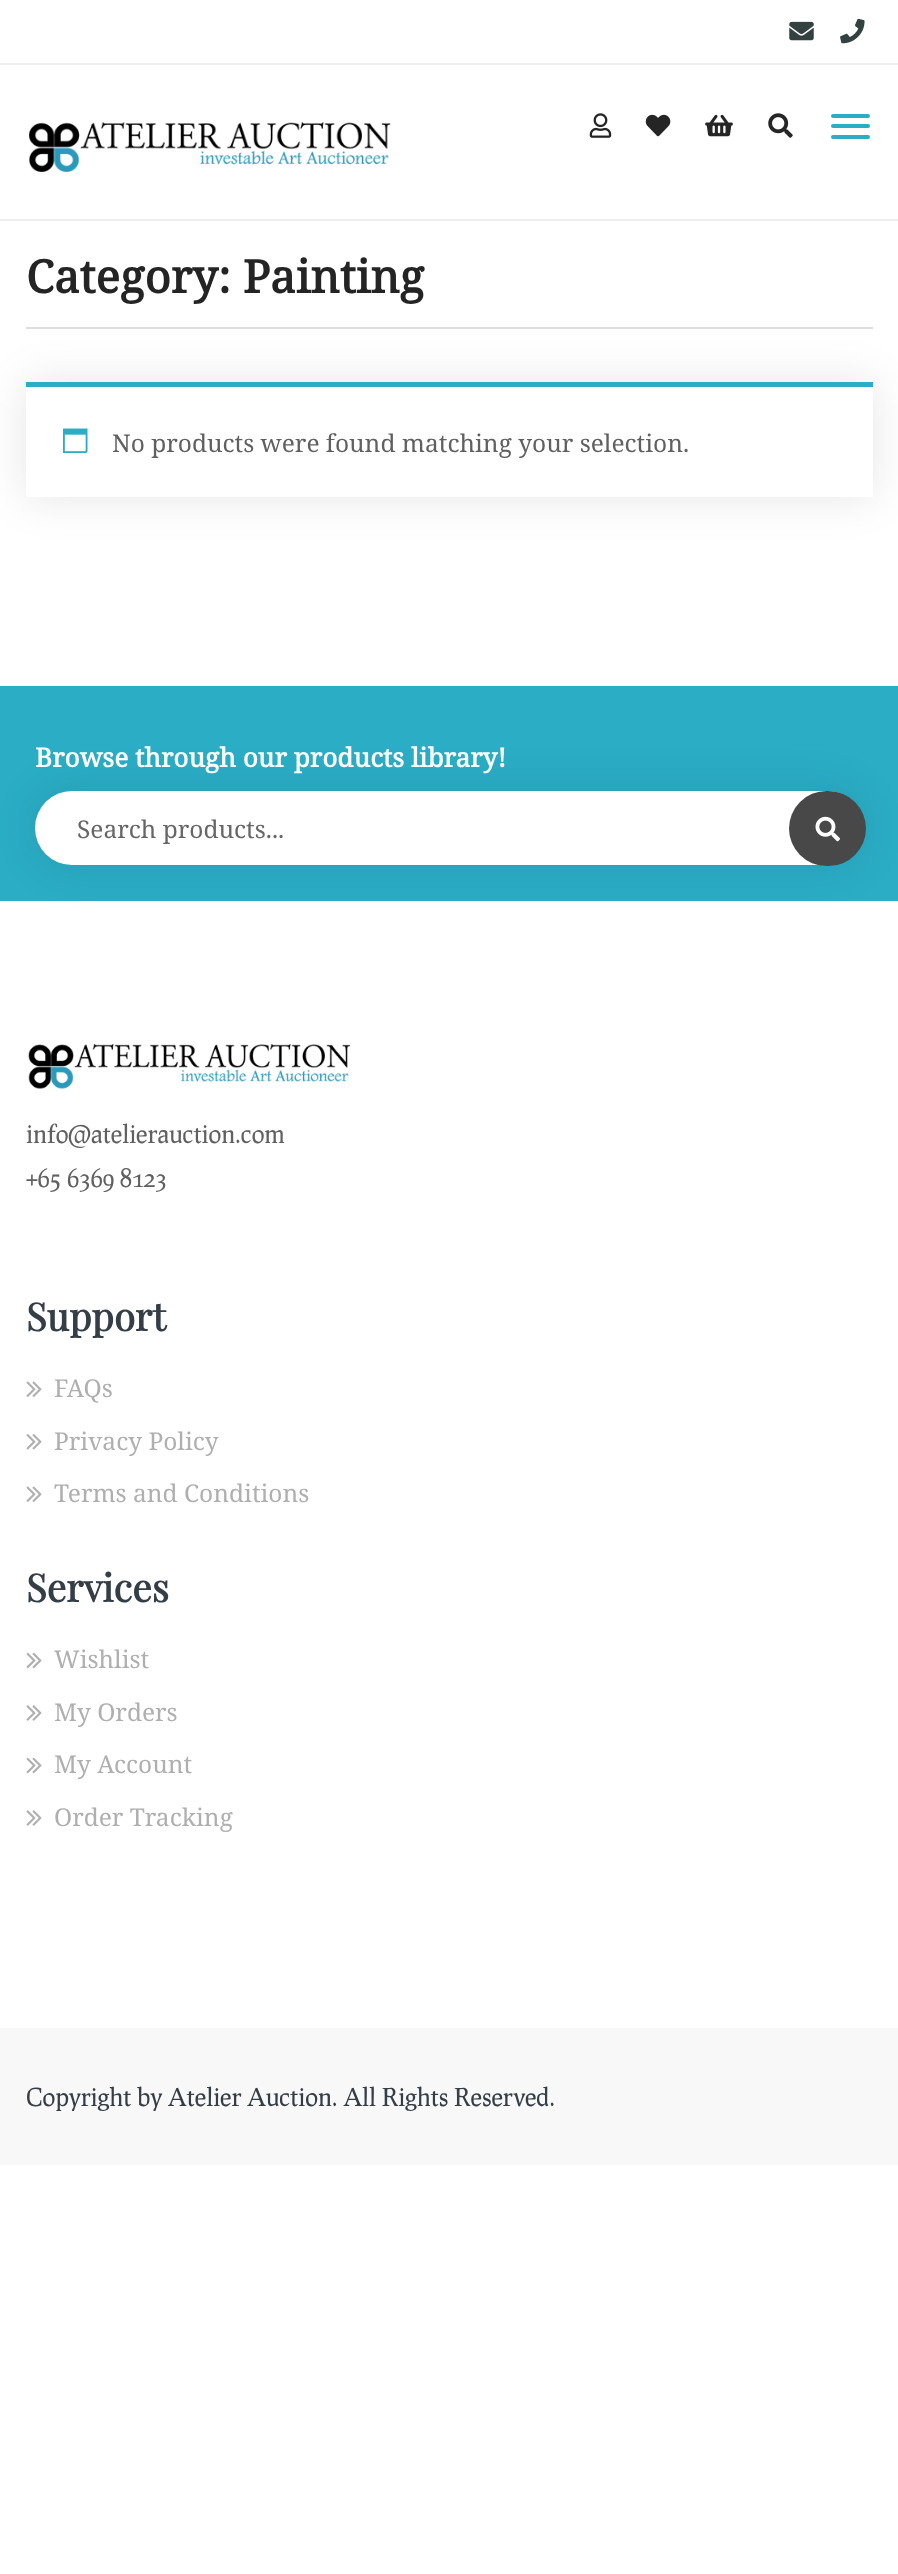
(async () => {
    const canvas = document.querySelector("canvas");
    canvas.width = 898;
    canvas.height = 2574;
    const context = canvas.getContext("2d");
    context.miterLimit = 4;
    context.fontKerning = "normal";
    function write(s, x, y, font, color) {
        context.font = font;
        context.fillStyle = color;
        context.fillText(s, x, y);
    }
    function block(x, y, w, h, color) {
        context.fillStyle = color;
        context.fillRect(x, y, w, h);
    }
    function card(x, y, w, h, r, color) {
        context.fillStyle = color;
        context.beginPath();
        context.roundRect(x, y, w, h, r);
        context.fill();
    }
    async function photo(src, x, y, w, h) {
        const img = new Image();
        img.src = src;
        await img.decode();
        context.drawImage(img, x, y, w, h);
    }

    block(0, 0, 898, 2574, "rgb(255, 255, 255)");
    block(0, 63, 898, 2, "rgb(238, 238, 238)");
    await photo("media/1.png", 789, 21, 25, 20);
    await photo("media/2.png", 840, 18, 25, 26);
    block(0, 219, 898, 2, "rgb(238, 238, 238)");
    await photo("media/3.png", 29, 122, 362, 50);
    await photo("media/4.png", 589, 113, 23, 25);
    await photo("media/5.png", 645, 114, 26, 23);
    await photo("media/6.png", 705, 114, 28, 23);
    await photo("media/7.png", 768, 113, 25, 25);
    card(831, 114, 39, 4, 2, "rgb(43, 173, 198)");
    card(831, 124, 39, 4, 2, "rgb(43, 173, 198)");
    card(831, 135, 39, 4, 2, "rgb(43, 173, 198)");
    block(26, 327, 847, 2, "rgb(221, 221, 221)");
    write("Category: Painting", 26, 293, "bold 45.5px Noto Serif", "rgb(36, 36, 36)");
    context.fillStyle = "rgba(0, 0, 0, 0.1)";
    context.filter = "blur(22px)";
    context.beginPath();
    context.rect(26, 382, 847, 115);
    context.fill();
    context.filter = "none";
    block(26, 387, 847, 110, "rgb(255, 255, 255)");
    block(26, 382, 847, 5, "rgb(43, 173, 198)");
    await photo("media/8.png", 63, 428, 25, 25);
    write("No products were found matching your selection.", 112, 452, "24.5px Noto Serif", "rgb(96, 96, 96)");
    block(0, 686, 898, 215, "rgb(43, 173, 198)");
    write("Browse through our products library!", 35, 767, "bold 26.25px Noto Serif", "rgb(255, 255, 255)");
    context.fillStyle = "rgba(0, 0, 0, 0.1)";
    context.filter = "blur(22px)";
    context.beginPath();
    context.roundRect(35, 791, 830, 74, 37);
    context.fill();
    context.filter = "none";
    card(35, 791, 830, 74, 37, "rgb(255, 255, 255)");
    write("Search products...", 77, 838, "24.5px Noto Serif", "rgb(102, 102, 102)");
    card(789, 791, 77, 75, 37.5, "rgb(72, 72, 72)");
    await photo("media/9.png", 815, 816, 25, 26);
    await photo("media/10.png", 28, 1044, 322, 45);
    write("info@atelierauction.com", 26, 1143, "24.5px Prociono", "rgb(96, 96, 96)");
    write("+65 6369 8123", 26, 1187, "24.5px Prociono", "rgb(96, 96, 96)");
    write("Support", 26, 1331, "bold 38.5px Playfair Display", "rgb(52, 62, 71)");
    await photo("media/11.png", 26, 1381, 16, 16);
    write("FAQs", 54, 1397, "24.5px Noto Serif", "rgb(175, 175, 175)");
    await photo("media/12.png", 26, 1434, 16, 16);
    write("Privacy Policy", 54, 1450, "24.5px Noto Serif", "rgb(175, 175, 175)");
    await photo("media/11.png", 26, 1486, 16, 16);
    write("Terms and Conditions", 54, 1502, "24.5px Noto Serif", "rgb(175, 175, 175)");
    write("Services", 26, 1602, "bold 38.5px Playfair Display", "rgb(52, 62, 71)");
    await photo("media/13.png", 26, 1652, 16, 17);
    write("Wishlist", 54, 1668, "24.5px Noto Serif", "rgb(175, 175, 175)");
    await photo("media/14.png", 26, 1705, 16, 16);
    write("My Orders", 54, 1721, "24.5px Noto Serif", "rgb(175, 175, 175)");
    await photo("media/13.png", 26, 1757, 16, 17);
    write("My Account", 54, 1773, "24.5px Noto Serif", "rgb(175, 175, 175)");
    await photo("media/14.png", 26, 1810, 16, 16);
    write("Order Tracking", 54, 1826, "24.5px Noto Serif", "rgb(175, 175, 175)");
    block(0, 2028, 898, 137, "rgb(248, 248, 248)");
    write("Copyright by Atelier Auction. All Rights Reserved.", 26, 2106, "24.5px Prociono", "rgb(52, 62, 71)");
})();
